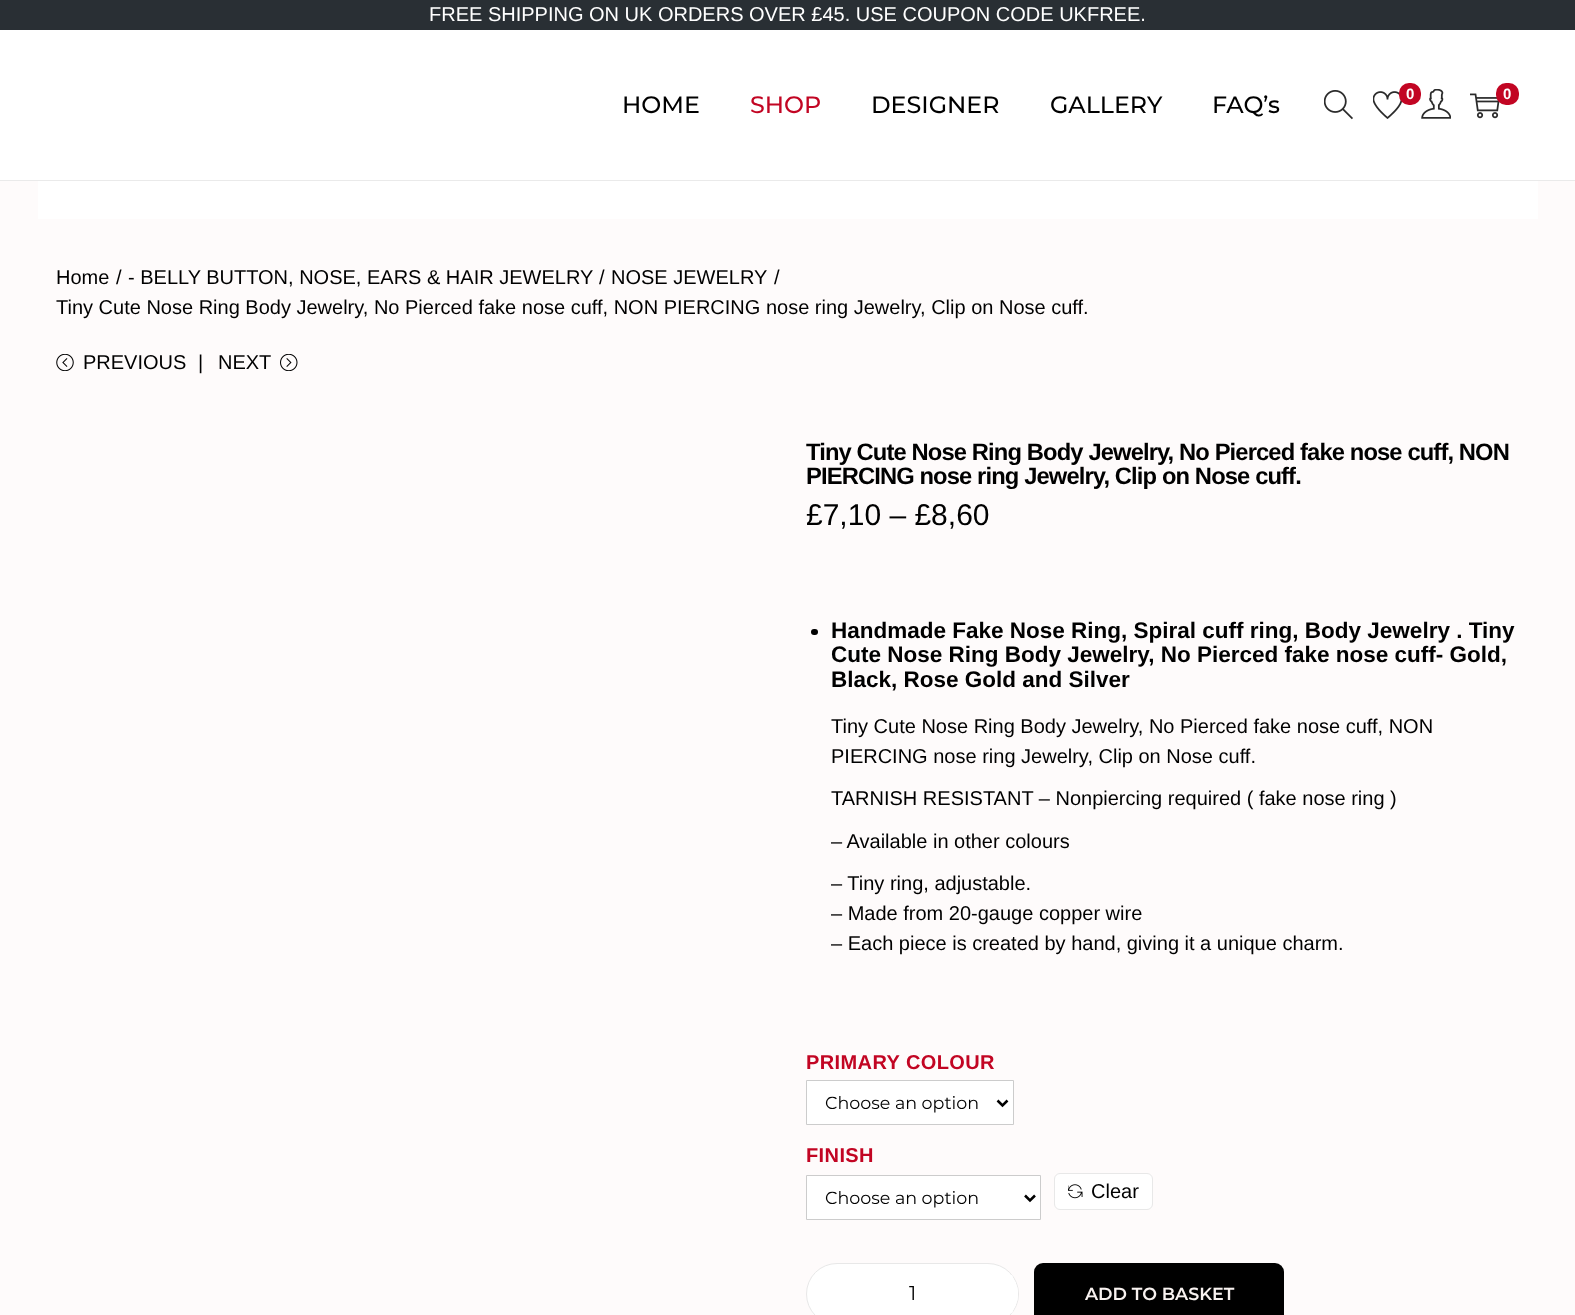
(async () => {
    const canvas = document.querySelector("canvas");
    canvas.width = 1575;
    canvas.height = 1315;
    const context = canvas.getContext("2d");
    context.miterLimit = 4;
    context.fontKerning = "normal";
    function write(s, x, y, font, color) {
        context.font = font;
        context.fillStyle = color;
        context.fillText(s, x, y);
    }
    function block(x, y, w, h, color) {
        context.fillStyle = color;
        context.fillRect(x, y, w, h);
    }
    function card(x, y, w, h, r, color) {
        context.fillStyle = color;
        context.beginPath();
        context.roundRect(x, y, w, h, r);
        context.fill();
    }
    async function photo(src, x, y, w, h) {
        const img = new Image();
        img.src = src;
        await img.decode();
        context.drawImage(img, x, y, w, h);
    }

    block(0, 0, 1575, 1315, "rgb(254, 251, 251)");
    block(0, 0, 1575, 30, "rgb(41, 47, 52)");
    write("FREE SHIPPING ON UK ORDERS OVER £45. USE COUPON CODE UKFREE.", 429, 21, "20px Liberation Sans", "rgb(255, 255, 255)");
    block(0, 30, 1575, 150, "rgb(255, 255, 255)");
    block(0, 180, 1575, 1, "rgb(234, 234, 234)");
    write("HOME", 622, 113, "500 23.75px Montserrat", "rgb(0, 0, 0)");
    write("SHOP", 750, 113, "500 23.75px Montserrat", "rgb(194, 5, 35)");
    write("DESIGNER", 871, 113, "500 23.75px Montserrat", "rgb(0, 0, 0)");
    write("GALLERY", 1050, 113, "500 23.75px Montserrat", "rgb(0, 0, 0)");
    write("FAQ’s", 1212, 113, "500 23.75px Montserrat", "rgb(0, 0, 0)");
    await photo("media/1.png", 1324, 90, 29, 30);
    await photo("media/2.png", 1373, 91, 29, 28);
    card(1399, 83, 22, 22, 10, "rgb(194, 5, 35)");
    write("0", 1406, 99, "bold 15px Liberation Sans", "rgb(255, 255, 255)");
    await photo("media/3.png", 1421, 89, 30, 30);
    await photo("media/4.png", 1470, 93, 30, 26);
    card(1496, 83, 23, 22, 10, "rgb(194, 5, 35)");
    write("0", 1503, 99, "bold 15px Liberation Sans", "rgb(255, 255, 255)");
    block(38, 181, 1500, 38, "rgb(255, 255, 255)");
    write("Home", 56, 284, "20px Liberation Sans", "rgb(0, 0, 0)");
    write("/", 116, 284, "20px Liberation Sans", "rgb(0, 0, 0)");
    write("- BELLY BUTTON, NOSE, EARS & HAIR JEWELRY", 128, 284, "20px Liberation Sans", "rgb(0, 0, 0)");
    write("/", 599, 284, "20px Liberation Sans", "rgb(0, 0, 0)");
    write("NOSE JEWELRY", 611, 284, "20px Liberation Sans", "rgb(0, 0, 0)");
    write("/", 774, 284, "20px Liberation Sans", "rgb(0, 0, 0)");
    write("Tiny Cute Nose Ring Body Jewelry, No Pierced fake nose cuff, NON PIERCING nose ring Jewelry, Clip on Nose cuff.", 56, 314, "20px Liberation Sans", "rgb(0, 0, 0)");
    await photo("media/5.png", 56, 354, 18, 17);
    write("PREVIOUS", 83, 369, "20px Liberation Sans", "rgb(0, 0, 0)");
    write("|", 198, 369, "20px Liberation Sans", "rgb(0, 0, 0)");
    write("NEXT", 218, 369, "20px Liberation Sans", "rgb(0, 0, 0)");
    await photo("media/6.png", 280, 354, 18, 17);
    context.letterSpacing = "-0.88px";
    write("Tiny Cute Nose Ring Body Jewelry, No Pierced fake nose cuff, NON", 806, 460, "bold 23.75px Liberation Sans", "rgb(0, 0, 0)");
    write("PIERCING nose ring Jewelry, Clip on Nose cuff.", 806, 484, "bold 23.75px Liberation Sans", "rgb(0, 0, 0)");
    context.letterSpacing = "0px";
    write("£7,10 – £8,60", 806, 525, "30px Liberation Sans", "rgb(0, 0, 0)");
    card(811, 629, 7, 6, 3, "rgb(0, 0, 0)");
    write("Handmade Fake Nose Ring, Spiral cuff ring, Body Jewelry . Tiny", 831, 638, "bold 22.5px Liberation Sans", "rgb(0, 0, 0)");
    write("Cute Nose Ring Body Jewelry, No Pierced fake nose cuff- Gold,", 831, 662, "bold 22.5px Liberation Sans", "rgb(0, 0, 0)");
    write("Black, Rose Gold and Silver", 831, 687, "bold 22.5px Liberation Sans", "rgb(0, 0, 0)");
    write("Tiny Cute Nose Ring Body Jewelry, No Pierced fake nose cuff, NON", 831, 733, "20px Liberation Sans", "rgb(0, 0, 0)");
    write("PIERCING nose ring Jewelry, Clip on Nose cuff.", 831, 763, "20px Liberation Sans", "rgb(0, 0, 0)");
    write("TARNISH RESISTANT – Nonpiercing required ( fake nose ring )", 831, 805, "20px Liberation Sans", "rgb(0, 0, 0)");
    write("– Available in other colours", 831, 848, "20px Liberation Sans", "rgb(0, 0, 0)");
    write("– Tiny ring, adjustable.", 831, 890, "20px Liberation Sans", "rgb(0, 0, 0)");
    write("– Made from 20-gauge copper wire", 831, 920, "20px Liberation Sans", "rgb(0, 0, 0)");
    write("– Each piece is created by hand, giving it a unique charm.", 831, 950, "20px Liberation Sans", "rgb(0, 0, 0)");
    context.letterSpacing = "0.4px";
    write("PRIMARY COLOUR", 806, 1069, "bold 20px Liberation Sans", "rgb(194, 5, 35)");
    context.fillStyle = "rgb(255, 255, 255)";
    context.beginPath();
    context.rect(806.5, 1080.5, 207, 44);
    context.fill();
    context.strokeStyle = "rgb(204, 204, 204)";
    context.stroke();
    context.beginPath();
    context.moveTo(997.5, 1100.5);
    context.lineTo(1002.5, 1105.5);
    context.lineTo(1007.5, 1100.5);
    context.strokeStyle = "rgb(0, 0, 0)";
    context.lineWidth = 2.5;
    context.stroke();
    context.letterSpacing = "0px";
    write("Choose an option", 825, 1109, "17.5px Montserrat", "rgb(0, 0, 0)");
    context.letterSpacing = "0.4px";
    write("FINISH", 806, 1162, "bold 20px Liberation Sans", "rgb(194, 5, 35)");
    context.fillStyle = "rgb(255, 255, 255)";
    context.beginPath();
    context.rect(806.5, 1175.5, 234, 44);
    context.fill();
    context.strokeStyle = "rgb(204, 204, 204)";
    context.lineWidth = 1;
    context.stroke();
    context.beginPath();
    context.moveTo(1025, 1195.5);
    context.lineTo(1030, 1200.5);
    context.lineTo(1035, 1195.5);
    context.strokeStyle = "rgb(0, 0, 0)";
    context.lineWidth = 2.5;
    context.stroke();
    context.letterSpacing = "0px";
    write("Choose an option", 825, 1204, "17.5px Montserrat", "rgb(0, 0, 0)");
    context.fillStyle = "rgb(255, 255, 255)";
    context.beginPath();
    context.roundRect(1054.5, 1173.5, 98, 36, 5.5);
    context.fill();
    context.strokeStyle = "rgb(232, 232, 232)";
    context.lineWidth = 1;
    context.stroke();
    await photo("media/7.png", 1068, 1184, 15, 15);
    write("Clear", 1091, 1198, "20px Liberation Sans", "rgb(0, 0, 0)");
    context.fillStyle = "rgb(255, 255, 255)";
    context.beginPath();
    context.roundRect(806.5, 1263.5, 212, 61, 30.5);
    context.fill();
    context.stroke();
    context.save();
    context.beginPath();
    context.roundRect(808, 1264, 210, 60, 30);
    context.clip();
    card(808, 1275, 210, 38, 9, "rgb(255, 255, 255)");
    context.restore();
    context.beginPath();
    context.moveTo(1012, 1313);
    context.lineTo(881, 1313);
    context.lineTo(814, 1313);
    context.lineTo(813, 1311);
    context.lineTo(817, 1312);
    context.lineTo(945, 1312);
    context.lineTo(1009, 1312);
    context.lineTo(1013, 1311);
    context.closePath();
    context.moveTo(817, 1275);
    context.lineTo(814, 1275);
    context.lineTo(813, 1277);
    context.lineTo(817, 1276);
    context.lineTo(945, 1276);
    context.lineTo(1009, 1276);
    context.lineTo(1013, 1277);
    context.lineTo(1012, 1275);
    context.lineTo(1009, 1275);
    context.closePath();
    context.moveTo(1017, 1286);
    context.bezierCurveTo(1018, 1291, 1018, 1297, 1017, 1302);
    context.closePath();
    context.moveTo(809, 1286);
    context.bezierCurveTo(808, 1291, 808, 1297, 809, 1302);
    context.closePath();
    context.fill("evenodd");
    write("1", 909, 1300, "20px Montserrat", "rgb(0, 0, 0)");
    card(1034, 1263, 250, 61, 9, "rgb(0, 0, 0)");
    write("ADD TO BASKET", 1085, 1300, "600 17.5px Montserrat", "rgb(248, 242, 240)");
})();
